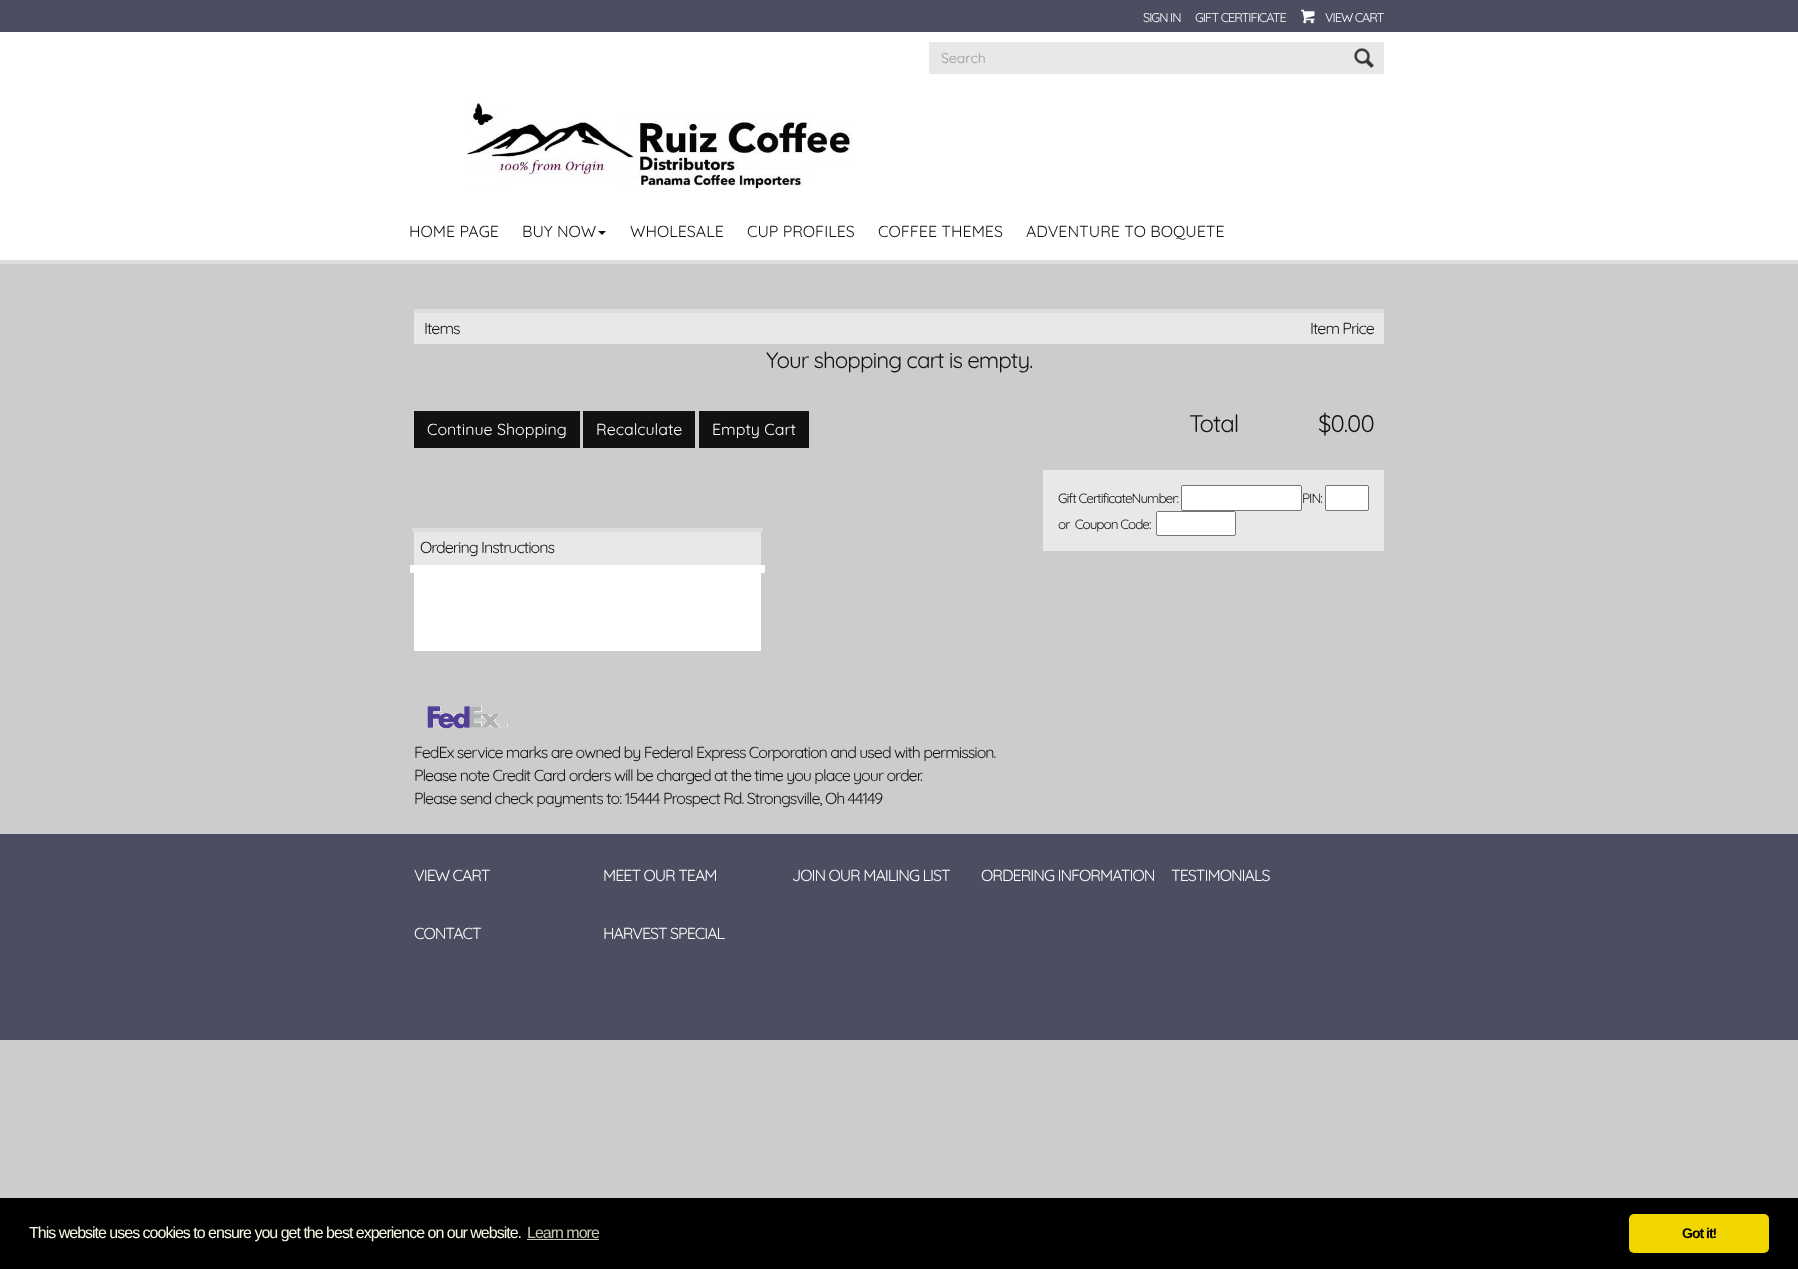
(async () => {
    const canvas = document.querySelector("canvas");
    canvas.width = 1798;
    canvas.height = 1269;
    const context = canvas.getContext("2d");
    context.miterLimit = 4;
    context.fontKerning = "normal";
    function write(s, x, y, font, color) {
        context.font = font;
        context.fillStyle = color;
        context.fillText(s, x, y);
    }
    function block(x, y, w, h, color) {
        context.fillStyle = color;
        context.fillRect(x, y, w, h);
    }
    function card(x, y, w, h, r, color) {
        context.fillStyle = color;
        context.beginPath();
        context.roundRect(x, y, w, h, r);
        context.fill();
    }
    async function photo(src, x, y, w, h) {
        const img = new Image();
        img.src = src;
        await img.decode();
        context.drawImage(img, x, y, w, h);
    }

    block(0, 0, 1798, 1269, "rgb(204, 204, 204)");
    block(0, 32, 1798, 228, "rgb(255, 255, 255)");
    block(0, 260, 1798, 4, "rgb(221, 221, 221)");
    block(0, 0, 1798, 32, "rgb(77, 77, 98)");
    context.letterSpacing = "-1px";
    write("SIGN IN", 1143, 22, "300 12.75px Quicksand", "rgb(255, 255, 255)");
    write("GIFT CERTIFICATE", 1195, 22, "300 12.75px Quicksand", "rgb(255, 255, 255)");
    await photo("media/1.png", 1301, 9, 14, 15);
    write("VIEW CART", 1325, 22, "300 12.75px Quicksand", "rgb(255, 255, 255)");
    block(929, 42, 455, 32, "rgb(232, 232, 232)");
    await photo("media/2.png", 1354, 48, 20, 20);
    context.letterSpacing = "0px";
    write("Search", 941, 63, "300 14px Quicksand", "rgb(153, 153, 153)");
    await photo("media/3.png", 466, 102, 387, 89);
    write("HOME PAGE", 409, 237, "300 16px Quicksand", "rgb(17, 17, 17)");
    write("BUY NOW", 522, 237, "300 16px Quicksand", "rgb(17, 17, 17)");
    context.beginPath();
    context.moveTo(598, 231);
    context.lineTo(606, 231);
    context.lineTo(602, 235);
    context.closePath();
    context.fill();
    write("WHOLESALE", 630, 237, "300 16px Quicksand", "rgb(17, 17, 17)");
    write("CUP PROFILES", 747, 237, "300 16px Quicksand", "rgb(17, 17, 17)");
    write("COFFEE THEMES", 878, 237, "300 16px Quicksand", "rgb(17, 17, 17)");
    write("ADVENTURE TO BOQUETE", 1026, 237, "300 16px Quicksand", "rgb(17, 17, 17)");
    block(414, 313, 970, 31, "rgb(232, 232, 232)");
    block(414, 309, 970, 4, "rgb(221, 221, 221)");
    context.letterSpacing = "-1px";
    write("Items", 424, 334, "300 16px Quicksand", "rgb(17, 17, 17)");
    write("Item Price", 1310, 334, "300 16px Quicksand", "rgb(17, 17, 17)");
    write("Your shopping cart is empty.", 766, 368, "300 22.4px Quicksand", "rgb(17, 17, 17)");
    block(414, 411, 166, 37, "rgb(17, 17, 17)");
    context.letterSpacing = "0px";
    write("Continue Shopping", 427, 435, "300 16px Quicksand", "rgb(255, 255, 255)");
    block(583, 411, 112, 37, "rgb(17, 17, 17)");
    write("Recalculate", 596, 435, "300 16px Quicksand", "rgb(255, 255, 255)");
    block(699, 411, 110, 37, "rgb(17, 17, 17)");
    write("Empty Cart", 712, 435, "300 16px Quicksand", "rgb(255, 255, 255)");
    block(414, 532, 347, 33, "rgb(232, 232, 232)");
    block(412, 528, 351, 4, "rgb(221, 221, 221)");
    block(410, 565, 355, 8, "rgb(255, 255, 255)");
    context.letterSpacing = "-1px";
    write("Ordering Instructions", 420, 553, "300 16px Quicksand", "rgb(17, 17, 17)");
    context.fillStyle = "rgba(0, 0, 0, 0.3)";
    context.filter = "blur(0.5px)";
    context.beginPath();
    context.rect(414, 573, 347, 78);
    context.fill();
    context.filter = "none";
    block(414, 573, 347, 78, "rgb(255, 255, 255)");
    write("Total", 1189, 432, "300 24px Quicksand", "rgb(17, 17, 17)");
    write("$0.00", 1318, 432, "300 24px Quicksand", "rgb(17, 17, 17)");
    block(1043, 470, 341, 81, "rgb(232, 232, 232)");
    write("Gift CertificateNumber:", 1058, 503, "300 13.5px Quicksand", "rgb(17, 17, 17)");
    context.fillStyle = "rgb(255, 255, 255)";
    context.beginPath();
    context.roundRect(1181.5, 485.5, 120, 25, 1.5);
    context.fill();
    context.strokeStyle = "rgb(118, 118, 118)";
    context.stroke();
    write("PIN:", 1302, 503, "300 13.5px Quicksand", "rgb(17, 17, 17)");
    context.fillStyle = "rgb(255, 255, 255)";
    context.beginPath();
    context.roundRect(1325.5, 485.5, 43, 25, 1.5);
    context.fill();
    context.stroke();
    write("or  Coupon Code:", 1058, 529, "300 13.5px Quicksand", "rgb(17, 17, 17)");
    context.fillStyle = "rgb(255, 255, 255)";
    context.beginPath();
    context.roundRect(1156.5, 511.5, 79, 24, 1.5);
    context.fill();
    context.stroke();
    await photo("media/4.png", 427, 706, 81, 23);
    write("FedEx service marks are owned by Federal Express Corporation and used with permission.", 414, 758, "300 16px Quicksand", "rgb(17, 17, 17)");
    write("Please note Credit Card orders will be charged at the time you place your order.", 414, 781, "300 16px Quicksand", "rgb(17, 17, 17)");
    write("Please send check payments to: 15444 Prospect Rd. Strongsville, Oh 44149", 414, 804, "300 16px Quicksand", "rgb(17, 17, 17)");
    block(0, 834, 1798, 206, "rgb(77, 77, 98)");
    write("VIEW CART", 414, 881, "300 16px Quicksand", "rgb(255, 255, 255)");
    write("MEET OUR TEAM", 603, 881, "300 16px Quicksand", "rgb(255, 255, 255)");
    write("JOIN OUR MAILING LIST", 792, 881, "300 16px Quicksand", "rgb(255, 255, 255)");
    write("ORDERING INFORMATION", 981, 881, "300 16px Quicksand", "rgb(255, 255, 255)");
    write("TESTIMONIALS", 1171, 881, "300 16px Quicksand", "rgb(255, 255, 255)");
    write("CONTACT", 414, 939, "300 16px Quicksand", "rgb(255, 255, 255)");
    write("HARVEST SPECIAL", 603, 939, "300 16px Quicksand", "rgb(255, 255, 255)");
    block(0, 1198, 1798, 71, "rgb(0, 0, 0)");
    write("This website uses cookies to ensure you get the best experience on our website.", 29, 1238, "16px Liberation Sans", "rgb(250, 249, 230)");
    write("Learn more", 527, 1238, "16px Liberation Sans", "rgb(200, 199, 184)");
    block(527, 1239, 72, 1, "rgb(200, 199, 184)");
    card(1629, 1214, 140, 39, 5, "rgb(241, 214, 0)");
    write("Got it!", 1682, 1238, "bold 14px Liberation Sans", "rgb(0, 0, 0)");
})();
